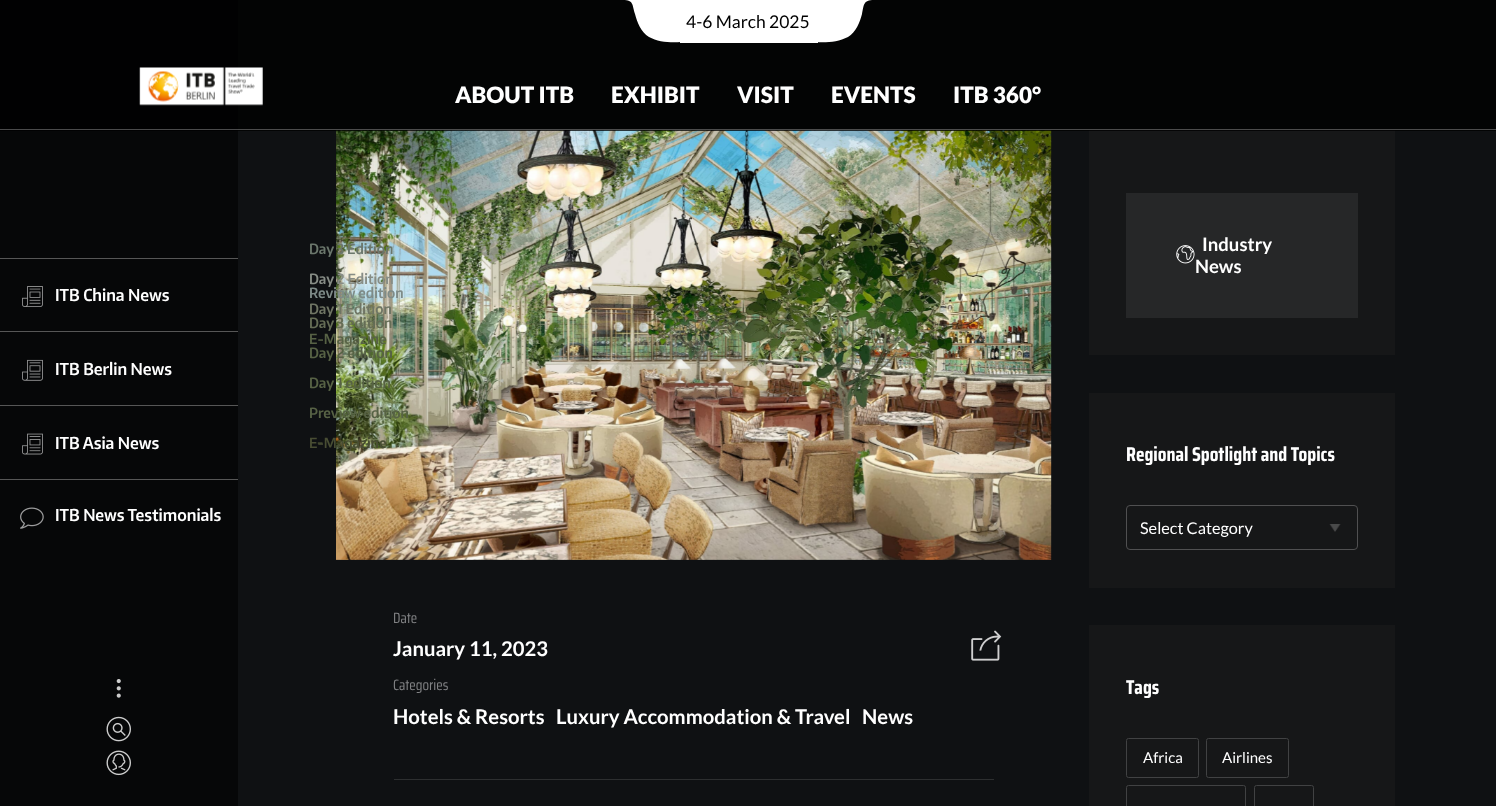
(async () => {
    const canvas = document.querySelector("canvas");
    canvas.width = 1496;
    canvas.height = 806;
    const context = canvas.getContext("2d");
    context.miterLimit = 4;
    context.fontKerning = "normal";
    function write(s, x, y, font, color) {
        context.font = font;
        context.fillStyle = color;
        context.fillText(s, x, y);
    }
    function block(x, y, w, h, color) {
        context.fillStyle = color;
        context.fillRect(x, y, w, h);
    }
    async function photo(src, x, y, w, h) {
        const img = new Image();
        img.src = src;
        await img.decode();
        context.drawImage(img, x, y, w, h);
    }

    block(0, 0, 1496, 806, "rgb(15, 17, 19)");
    block(0, 0, 238, 806, "rgb(6, 7, 8)");
    await photo("media/9.png", 336, 130, 716, 430);
    block(1089, 130, 306, 225, "rgb(22, 23, 24)");
    block(0, 0, 1496, 131, "rgba(0, 0, 0, 0.75)");
    block(0, 129, 1496, 1, "rgba(255, 255, 255, 0.29)");
    block(680, 0, 138, 43, "rgb(255, 255, 255)");
    context.beginPath();
    context.moveTo(681, 42);
    context.bezierCurveTo(671, 43, 658, 42, 649, 37);
    context.bezierCurveTo(641, 32, 637, 22, 635, 14);
    context.bezierCurveTo(632, 5, 634, 0, 623, 0);
    context.lineTo(681, 0);
    context.closePath();
    context.fill();
    write("4-6 March 2025", 686, 28, "17.5px Lato", "rgb(0, 0, 0)");
    context.save();
    context.beginPath();
    context.rect(816, 0, 59, 43);
    context.clip();
    context.fillStyle = "rgb(255, 255, 255)";
    context.beginPath();
    context.moveTo(815, 42);
    context.bezierCurveTo(826, 43, 838, 42, 848, 37);
    context.bezierCurveTo(856, 32, 860, 22, 862, 14);
    context.bezierCurveTo(864, 5, 863, 0, 874, 0);
    context.lineTo(815, 0);
    context.closePath();
    context.fill();
    context.restore();
    await photo("media/1.png", 139, 67, 124, 39);
    write("ABOUT ITB", 455, 103, "900 22.5px Lato", "rgb(255, 255, 255)");
    write("EXHIBIT", 611, 103, "900 22.5px Lato", "rgb(255, 255, 255)");
    write("VISIT", 737, 103, "900 22.5px Lato", "rgb(255, 255, 255)");
    write("EVENTS", 831, 103, "900 22.5px Lato", "rgb(255, 255, 255)");
    write("ITB 360°", 953, 103, "900 22.5px Lato", "rgb(255, 255, 255)");
    block(0, 258, 238, 1, "rgb(86, 86, 86)");
    await photo("media/2.png", 22, 286, 21, 21);
    write("ITB China News", 55, 301, "600 16.25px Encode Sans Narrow", "rgb(255, 255, 255)");
    write("Day 3 Edition", 309, 254, "600 14px Encode Sans Narrow", "rgb(107, 119, 108)");
    write("Day 2 Edition", 309, 284, "600 14px Encode Sans Narrow", "rgb(135, 141, 134)");
    write("Day 1 Edition", 309, 314, "600 14px Encode Sans Narrow", "rgb(111, 117, 100)");
    write("E-Magazine", 309, 344, "600 14px Encode Sans Narrow", "rgb(87, 98, 69)");
    block(0, 331, 238, 1, "rgb(86, 86, 86)");
    await photo("media/3.png", 22, 359, 21, 22);
    write("ITB Berlin News", 55, 375, "600 16.25px Encode Sans Narrow", "rgb(255, 255, 255)");
    write("Review edition", 309, 298, "600 14px Encode Sans Narrow", "rgb(126, 139, 136)");
    write("Day 3 edition", 309, 328, "600 14px Encode Sans Narrow", "rgb(101, 109, 86)");
    write("Day 2 edition", 309, 358, "600 14px Encode Sans Narrow", "rgb(87, 98, 69)");
    write("Day 1 edition", 309, 388, "600 14px Encode Sans Narrow", "rgb(87, 98, 69)");
    write("Preview edition", 309, 418, "600 14px Encode Sans Narrow", "rgb(87, 98, 69)");
    write("E-Magazine", 309, 448, "600 14px Encode Sans Narrow", "rgb(72, 77, 51)");
    block(0, 405, 238, 1, "rgb(86, 86, 86)");
    await photo("media/4.png", 22, 433, 21, 22);
    write("ITB Asia News", 55, 449, "600 16.25px Encode Sans Narrow", "rgb(255, 255, 255)");
    write("-", 317, 447, "600 14px Encode Sans Narrow", "rgb(72, 77, 51)");
    block(0, 479, 238, 1, "rgb(86, 86, 86)");
    await photo("media/5.png", 20, 507, 24, 22);
    write("ITB News Testimonials", 55, 521, "600 16.25px Encode Sans Narrow", "rgb(255, 255, 255)");
    await photo("media/6.png", 116, 679, 5, 19);
    await photo("media/7.png", 106, 716, 25, 26);
    await photo("media/8.png", 106, 750, 25, 26);
    block(394, 779, 600, 1, "rgb(45, 47, 48)");
    write("Date", 393, 623, "15px Saira Condensed", "rgb(130, 131, 133)");
    write("January 11, 2023", 393, 656, "bold 20.25px Lato", "rgb(255, 255, 255)");
    write("Categories", 393, 690, "15px Saira Condensed", "rgb(130, 131, 133)");
    write("Hotels & Resorts", 393, 724, "bold 20.25px Lato", "rgb(255, 255, 255)");
    write("Luxury Accommodation & Travel", 556, 724, "bold 20.25px Lato", "rgb(255, 255, 255)");
    write("News", 862, 724, "bold 20.25px Lato", "rgb(255, 255, 255)");
    await photo("media/10.png", 971, 630, 31, 31);
    block(1126, 193, 232, 125, "rgb(38, 39, 40)");
    await photo("media/11.png", 1176, 245, 19, 19);
    write("Industry", 1202, 251, "bold 18.5px Lato", "rgb(255, 255, 255)");
    write("News", 1195, 273, "bold 18.5px Lato", "rgb(255, 255, 255)");
    block(1089, 393, 306, 195, "rgb(22, 23, 24)");
    write("Regional Spotlight and Topics", 1126, 461, "bold 20px Saira Condensed", "rgb(255, 255, 255)");
    await photo("media/12.png", 1329, 524, 12, 8);
    context.beginPath();
    context.roundRect(1126.5, 505.5, 231, 44, 3.5);
    context.strokeStyle = "rgb(80, 80, 81)";
    context.stroke();
    write("Select Category", 1140, 534, "16.25px Lato", "rgb(255, 255, 255)");
    block(1089, 625, 306, 181, "rgb(22, 23, 24)");
    write("Tags", 1126, 694, "bold 20px Saira Condensed", "rgb(255, 255, 255)");
    context.beginPath();
    context.roundRect(1126.5, 738.5, 72, 39, 2);
    context.strokeStyle = "rgb(65, 66, 67)";
    context.stroke();
    write("Africa", 1143, 763, "15px Lato", "rgb(255, 255, 255)");
    context.beginPath();
    context.roundRect(1206.5, 738.5, 82, 39, 2);
    context.stroke();
    write("Airlines", 1222, 763, "15px Lato", "rgb(255, 255, 255)");
    context.beginPath();
    context.roundRect(1126.5, 785.5, 119, 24, 2);
    context.stroke();
    context.beginPath();
    context.roundRect(1254.5, 785.5, 59, 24, 2);
    context.stroke();
})();
